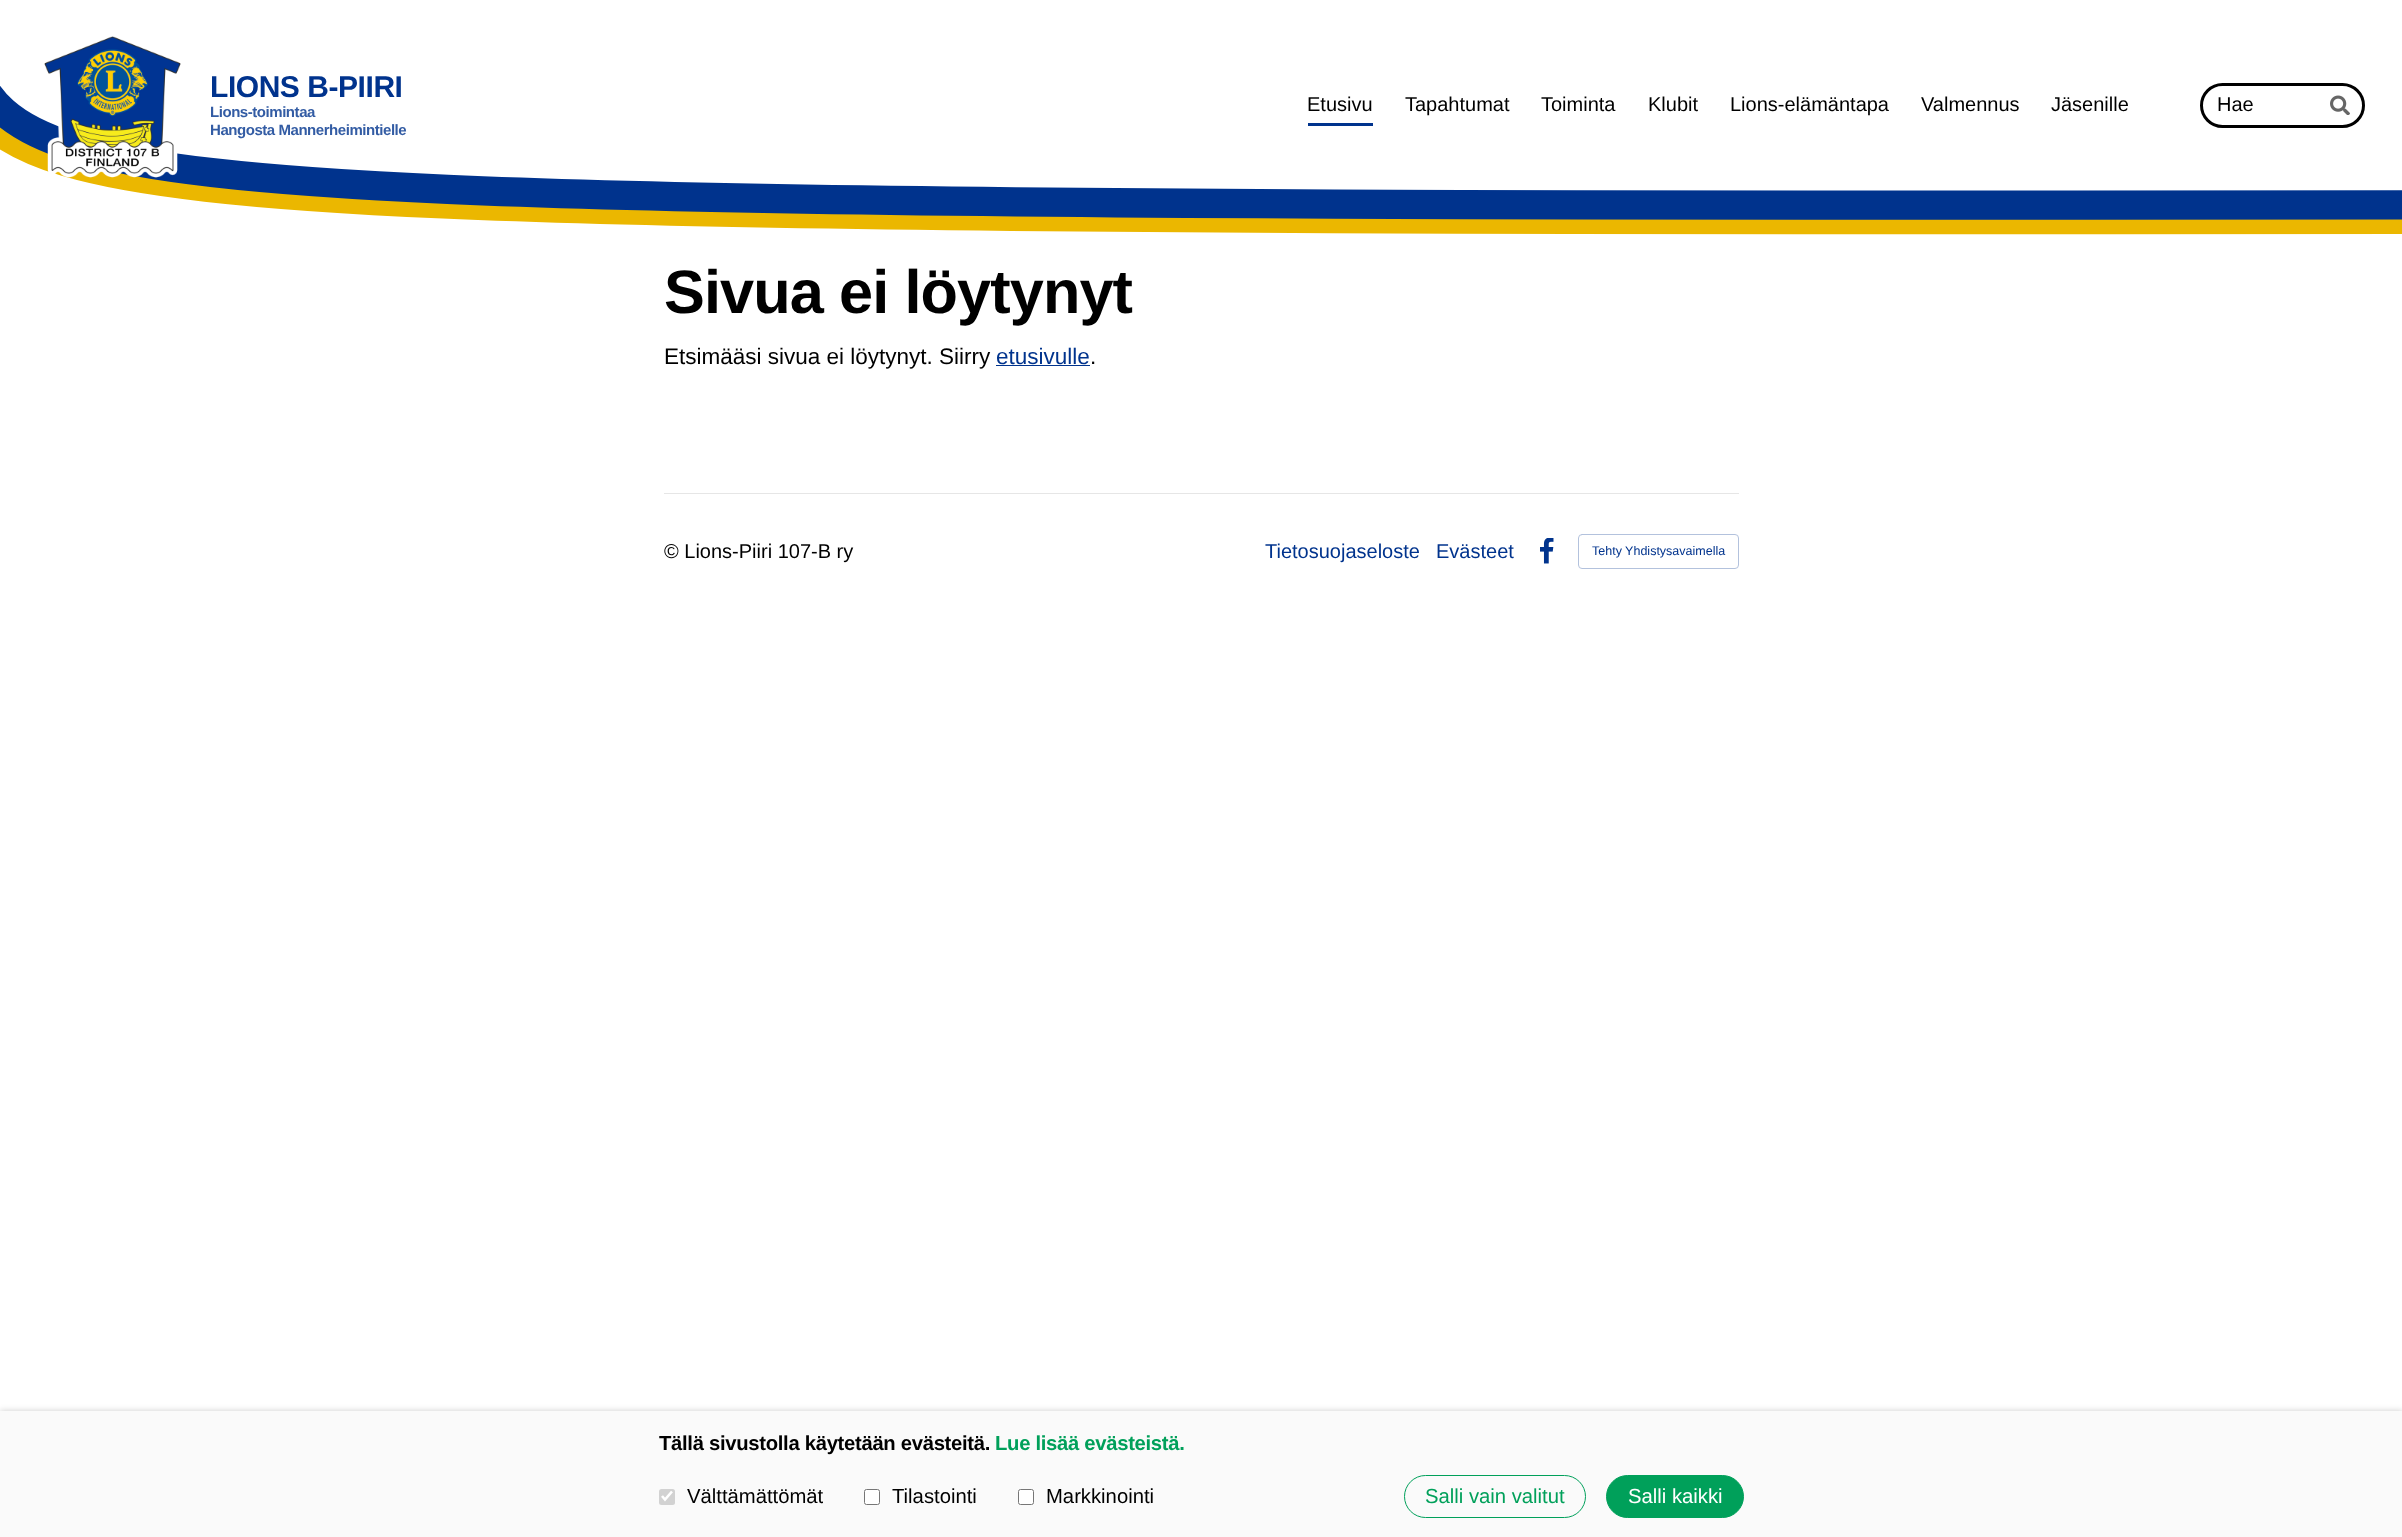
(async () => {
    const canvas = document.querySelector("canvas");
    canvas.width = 2402;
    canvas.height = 1537;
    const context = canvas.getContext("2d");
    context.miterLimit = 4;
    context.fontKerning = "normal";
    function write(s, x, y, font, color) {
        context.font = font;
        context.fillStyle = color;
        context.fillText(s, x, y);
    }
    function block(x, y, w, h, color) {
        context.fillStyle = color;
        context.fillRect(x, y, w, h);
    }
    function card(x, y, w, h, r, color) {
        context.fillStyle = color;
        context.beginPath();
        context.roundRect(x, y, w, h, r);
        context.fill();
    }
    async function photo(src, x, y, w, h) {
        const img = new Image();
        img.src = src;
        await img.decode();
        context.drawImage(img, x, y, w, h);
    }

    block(0, 0, 2402, 1537, "rgb(255, 255, 255)");
    context.beginPath();
    context.moveTo(-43.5, 79);
    context.bezierCurveTo(58.5, 275.5, 291.5, 202.5, 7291.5, 221);
    context.strokeStyle = "rgb(235, 183, 0)";
    context.lineWidth = 29.2;
    context.lineCap = "round";
    context.stroke();
    context.beginPath();
    context.moveTo(-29, 64);
    context.bezierCurveTo(58.5, 261, 291.5, 188, 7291.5, 206.5);
    context.strokeStyle = "rgb(0, 51, 141)";
    context.stroke();
    await photo("media/1.png", 44, 36, 137, 142);
    context.letterSpacing = "-0.45px";
    write("LIONS B-PIIRI", 210, 97, "bold 30px Liberation Sans", "rgb(0, 51, 141)");
    write("Lions-toimintaa", 210, 117, "bold 15px Liberation Sans", "rgb(51, 92, 164)");
    write("Hangosta Mannerheimintielle", 210, 135, "bold 15px Liberation Sans", "rgb(51, 92, 164)");
    context.letterSpacing = "0px";
    write("Etusivu", 1307, 111, "20px Liberation Sans", "rgb(0, 0, 0)");
    block(1308, 123, 65, 3, "rgb(0, 51, 141)");
    write("Tapahtumat", 1405, 111, "20px Liberation Sans", "rgb(0, 0, 0)");
    write("Toiminta", 1541, 111, "20px Liberation Sans", "rgb(0, 0, 0)");
    write("Klubit", 1648, 111, "20px Liberation Sans", "rgb(0, 0, 0)");
    write("Lions-elämäntapa", 1730, 111, "20px Liberation Sans", "rgb(0, 0, 0)");
    write("Valmennus", 1921, 111, "20px Liberation Sans", "rgb(0, 0, 0)");
    write("Jäsenille", 2051, 111, "20px Liberation Sans", "rgb(0, 0, 0)");
    context.beginPath();
    context.roundRect(2201.5, 84.5, 162, 42, 21);
    context.strokeStyle = "rgb(0, 0, 0)";
    context.lineWidth = 3;
    context.stroke();
    write("Hae", 2217, 111, "20px Liberation Sans", "rgb(0, 0, 0)");
    await photo("media/2.png", 2330, 95, 20, 20);
    context.letterSpacing = "-0.9px";
    write("Sivua ei löytynyt", 664, 313, "bold 61.25px Liberation Sans", "rgb(0, 0, 0)");
    context.letterSpacing = "0px";
    write("Etsimääsi sivua ei löytynyt. Siirry", 664, 364, "22.5px Liberation Sans", "rgb(0, 0, 0)");
    write("etusivulle", 996, 364, "22.5px Liberation Sans", "rgb(0, 51, 141)");
    block(996, 365, 94, 1, "rgb(0, 51, 141)");
    write(".", 1090, 364, "22.5px Liberation Sans", "rgb(0, 0, 0)");
    block(664, 493, 1075, 1, "rgb(230, 230, 230)");
    write("© Lions-Piiri 107-B ry", 664, 558, "20px Liberation Sans", "rgb(0, 0, 0)");
    write("Tietosuojaseloste", 1265, 558, "20px Liberation Sans", "rgb(0, 51, 141)");
    write("Evästeet", 1436, 558, "20px Liberation Sans", "rgb(0, 51, 141)");
    await photo("media/3.png", 1540, 538, 14, 26);
    context.beginPath();
    context.roundRect(1578.5, 534.5, 160, 34, 3.5);
    context.strokeStyle = "rgb(179, 194, 221)";
    context.lineWidth = 1;
    context.stroke();
    write("Tehty Yhdistysavaimella", 1592, 555, "12.5px Liberation Sans", "rgb(0, 51, 141)");
    context.fillStyle = "rgba(0, 0, 0, 0.2)";
    context.filter = "blur(3px)";
    context.beginPath();
    context.rect(0, 1411, 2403, 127);
    context.fill();
    context.filter = "none";
    block(0, 1411, 2402, 126, "rgb(250, 250, 250)");
    context.letterSpacing = "-0.3px";
    write("Tällä sivustolla käytetään evästeitä.", 659, 1450, "bold 20.25px Liberation Sans", "rgb(0, 0, 0)");
    write("Lue lisää evästeistä.", 995, 1450, "bold 20.25px Liberation Sans", "rgb(0, 160, 90)");
    card(659, 1489, 16, 16, 2.5, "rgb(210, 210, 210)");
    context.beginPath();
    context.moveTo(662, 1496);
    context.lineTo(665, 1499.5);
    context.lineTo(672, 1491.5);
    context.strokeStyle = "rgb(255, 255, 255)";
    context.lineWidth = 2.6;
    context.lineCap = "butt";
    context.stroke();
    context.letterSpacing = "0px";
    write("Välttämättömät", 687, 1503, "20.25px Liberation Sans", "rgb(0, 0, 0)");
    context.fillStyle = "rgb(255, 255, 255)";
    context.beginPath();
    context.roundRect(864.5, 1489.5, 15, 15, 2);
    context.fill();
    context.strokeStyle = "rgb(118, 118, 118)";
    context.lineWidth = 1;
    context.stroke();
    write("Tilastointi", 892, 1503, "20.25px Liberation Sans", "rgb(0, 0, 0)");
    context.fillStyle = "rgb(255, 255, 255)";
    context.beginPath();
    context.roundRect(1018.5, 1489.5, 15, 15, 2);
    context.fill();
    context.stroke();
    write("Markkinointi", 1046, 1503, "20.25px Liberation Sans", "rgb(0, 0, 0)");
    context.beginPath();
    context.roundRect(1404.5, 1475.5, 181, 42, 21);
    context.strokeStyle = "rgb(0, 160, 90)";
    context.stroke();
    write("Salli vain valitut", 1425, 1503, "20.25px Liberation Sans", "rgb(0, 160, 90)");
    context.beginPath();
    context.roundRect(1606.5, 1475.5, 137, 42, 21);
    context.fill();
    context.stroke();
    write("Salli kaikki", 1628, 1503, "20.25px Liberation Sans", "rgb(255, 255, 255)");
})();
